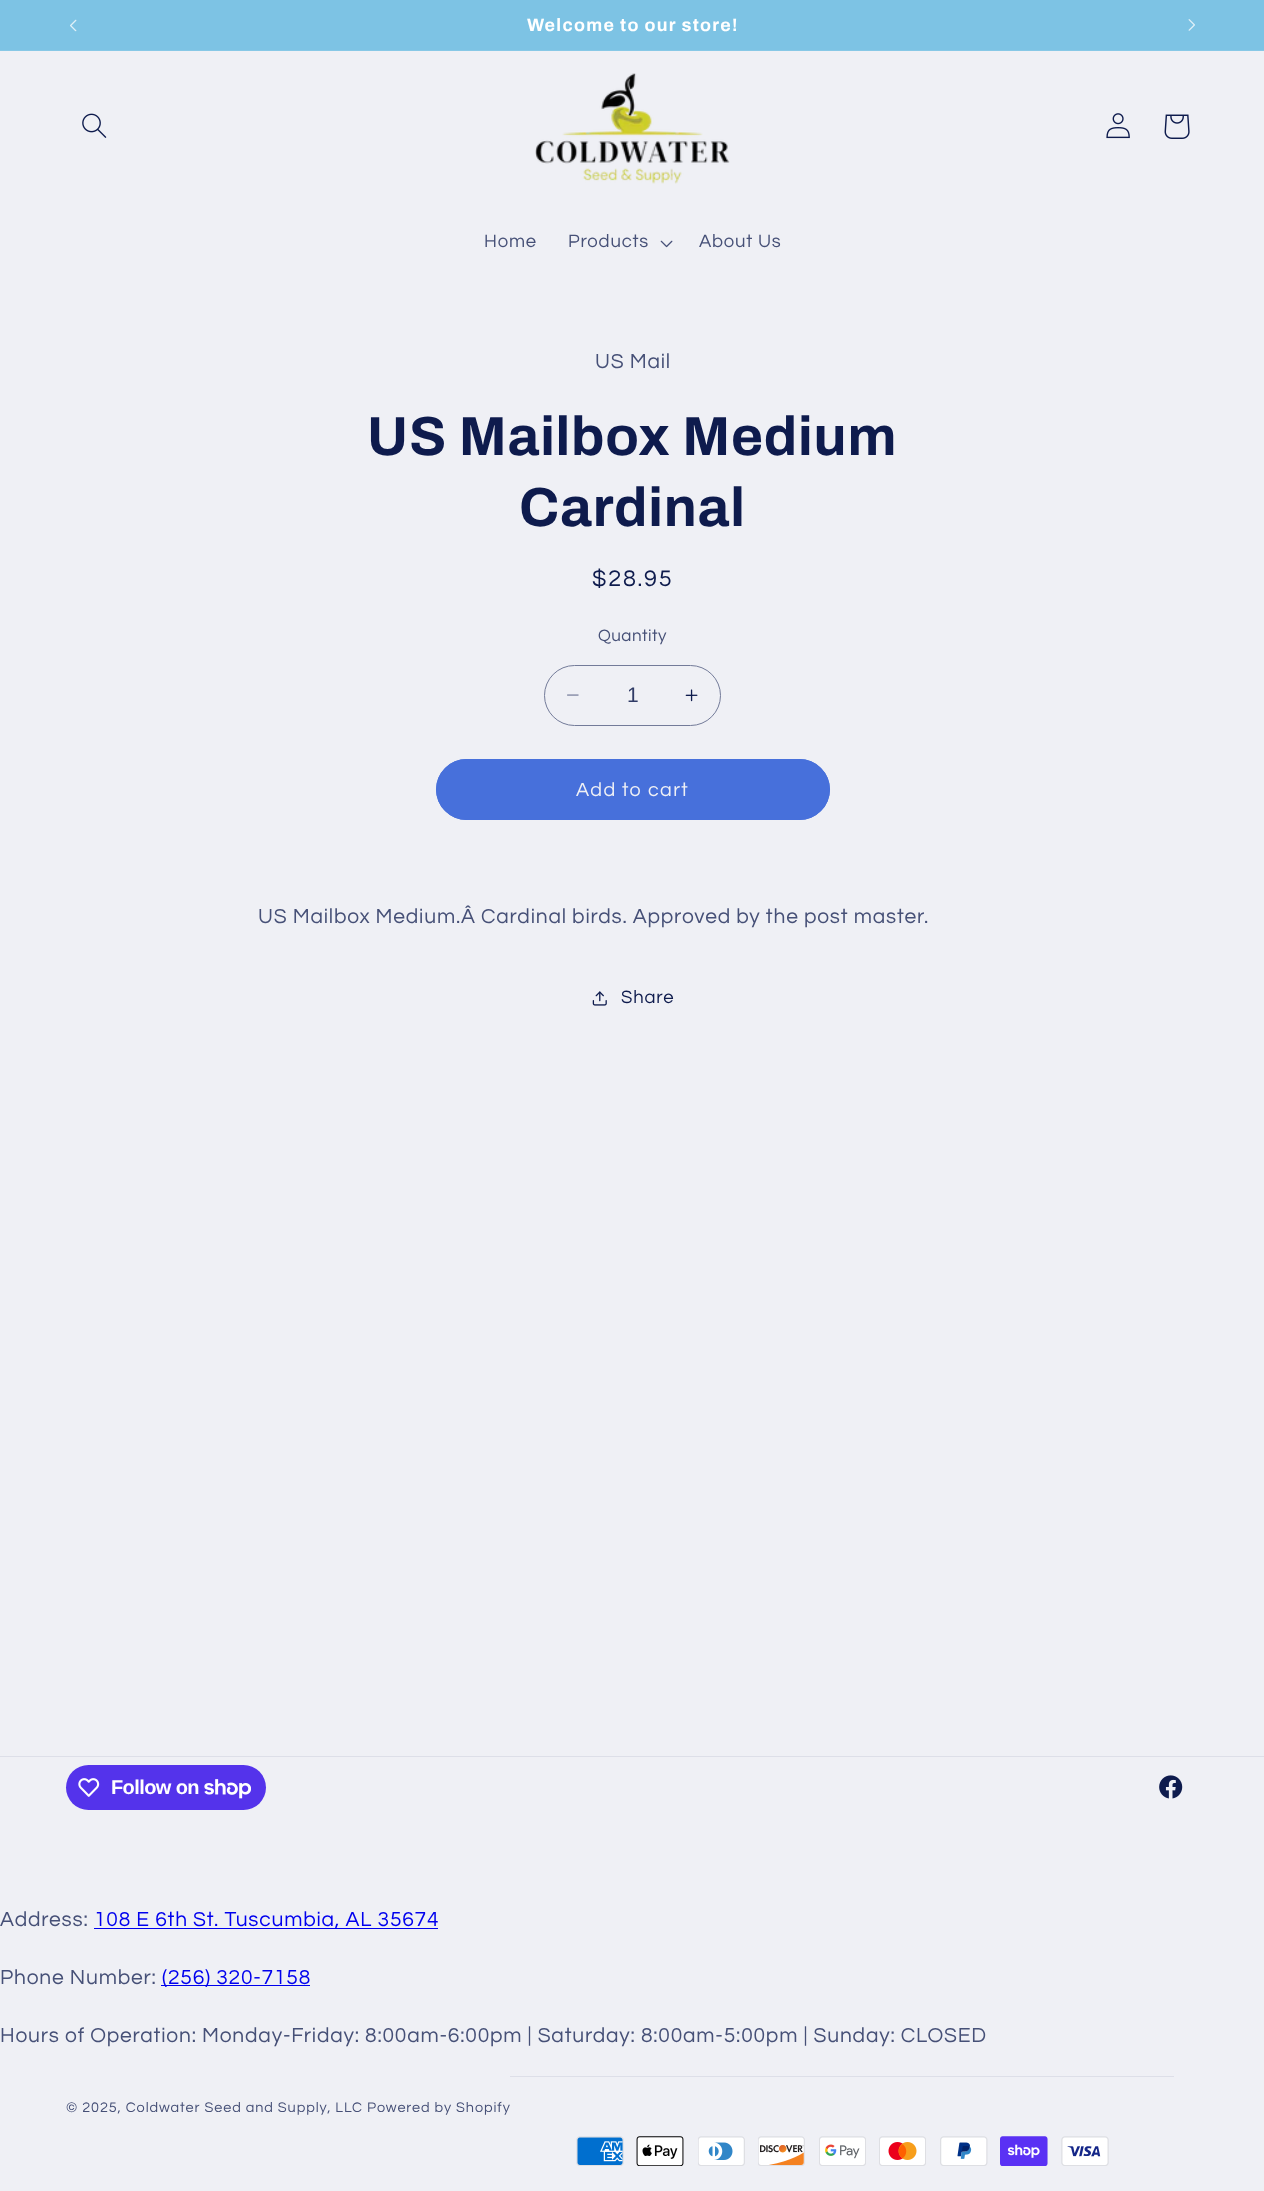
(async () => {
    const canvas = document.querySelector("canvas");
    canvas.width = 1264;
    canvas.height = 2191;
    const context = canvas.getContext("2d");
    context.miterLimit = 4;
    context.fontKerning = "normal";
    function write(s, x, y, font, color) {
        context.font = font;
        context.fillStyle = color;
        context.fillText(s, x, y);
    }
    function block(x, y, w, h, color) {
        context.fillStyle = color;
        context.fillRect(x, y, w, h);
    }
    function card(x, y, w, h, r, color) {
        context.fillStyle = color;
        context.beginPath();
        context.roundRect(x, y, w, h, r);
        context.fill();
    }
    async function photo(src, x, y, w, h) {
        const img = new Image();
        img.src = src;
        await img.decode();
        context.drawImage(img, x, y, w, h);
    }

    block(0, 0, 1264, 2191, "rgb(239, 240, 245)");
    block(0, 0, 1264, 50, "rgb(125, 195, 228)");
    block(0, 50, 1264, 1, "rgb(135, 200, 230)");
    await photo("media/1.png", 70, 19, 7, 13);
    context.letterSpacing = "1.3px";
    write("Welcome to our store!", 527, 31, "bold 17.9px Archivo", "rgb(255, 255, 255)");
    await photo("media/2.png", 1188, 19, 7, 12);
    await photo("media/3.png", 82, 113, 25, 25);
    await photo("media/4.png", 535, 73, 195, 111);
    await photo("media/5.png", 1106, 113, 24, 26);
    await photo("media/6.png", 1164, 114, 26, 25);
    context.letterSpacing = "0.8px";
    write("Home", 484, 247, "18.5px Questrial", "rgb(70, 80, 119)");
    write("Products", 568, 247, "18.5px Questrial", "rgb(70, 80, 119)");
    await photo("media/7.png", 660, 240, 13, 8);
    write("About Us", 699, 247, "18.5px Questrial", "rgb(70, 80, 119)");
    write("US Mail", 595, 368, "21px Questrial", "rgb(70, 80, 119)");
    write("US Mailbox Medium", 367, 455, "bold 55px Archivo", "rgb(14, 27, 77)");
    write("Cardinal", 519, 526, "bold 55px Archivo", "rgb(14, 27, 77)");
    context.letterSpacing = "1.75px";
    write("$28.95", 592, 586, "23.5px Questrial", "rgb(14, 27, 77)");
    context.letterSpacing = "0.5px";
    write("Quantity", 598, 641, "17px Questrial", "rgb(70, 80, 119)");
    await photo("media/8.png", 567, 694, 12, 2);
    await photo("media/9.png", 685, 689, 13, 13);
    context.beginPath();
    context.roundRect(544.5, 665.5, 176, 60, 30);
    context.strokeStyle = "rgb(115, 123, 153)";
    context.stroke();
    context.letterSpacing = "0px";
    write("1", 627, 702, "21px Liberation Sans", "rgb(48, 59, 102)");
    card(436, 759, 394, 61, 30.5, "rgb(71, 112, 219)");
    context.beginPath();
    context.roundRect(436.5, 759.5, 393, 60, 30);
    context.strokeStyle = "rgb(71, 112, 219)";
    context.stroke();
    context.letterSpacing = "1.3px";
    write("Add to cart", 576, 796, "19.75px Questrial", "rgb(239, 240, 245)");
    context.letterSpacing = "0.8px";
    write("US Mailbox Medium.Â Cardinal birds. Approved by the post master.", 258, 923, "21px Questrial", "rgb(70, 80, 119)");
    await photo("media/10.png", 592, 991, 15, 15);
    write("Share", 621, 1003, "18.5px Questrial", "rgb(14, 27, 77)");
    block(0, 1756, 1264, 1, "rgb(221, 223, 232)");
    card(66, 1765, 200, 45, 22.5, "rgb(84, 51, 235)");
    await photo("media/11.png", 78, 1778, 22, 19);
    context.letterSpacing = "-0.6px";
    write("Follow on", 111, 1794, "bold 20px Liberation Sans", "rgb(255, 255, 255)");
    await photo("media/12.png", 204, 1779, 47, 20);
    await photo("media/13.png", 1159, 1775, 24, 24);
    context.letterSpacing = "0.8px";
    write("Address:", 0, 1926, "21px Questrial", "rgb(70, 80, 119)");
    block(94, 1928, 344, 1, "rgb(0, 0, 238)");
    write("108 E 6th St. Tuscumbia, AL 35674", 94, 1926, "21px Questrial", "rgb(0, 0, 238)");
    write("Phone Number:", 0, 1984, "21px Questrial", "rgb(70, 80, 119)");
    block(161, 1985, 149, 1, "rgb(0, 0, 238)");
    write("(256) 320-7158", 162, 1984, "21px Questrial", "rgb(0, 0, 238)");
    write("Hours of Operation: Monday-Friday: 8:00am-6:00pm | Saturday: 8:00am-5:00pm | Sunday: CLOSED", 0, 2042, "21px Questrial", "rgb(70, 80, 119)");
    context.letterSpacing = "0.92px";
    write("© 2025, Coldwater Seed and Supply, LLC Powered by Shopify", 66, 2112, "14.45px Questrial", "rgb(70, 80, 119)");
    block(510, 2076, 664, 1, "rgb(221, 223, 232)");
    await photo("media/14.png", 576, 2136, 48, 30);
    await photo("media/15.png", 636, 2136, 48, 30);
    await photo("media/16.png", 698, 2136, 47, 30);
    await photo("media/17.png", 758, 2136, 47, 30);
    await photo("media/18.png", 819, 2136, 47, 30);
    await photo("media/19.png", 879, 2136, 47, 30);
    await photo("media/20.png", 940, 2136, 48, 30);
    await photo("media/21.png", 1000, 2136, 48, 30);
    await photo("media/22.png", 1061, 2136, 48, 30);
})();
